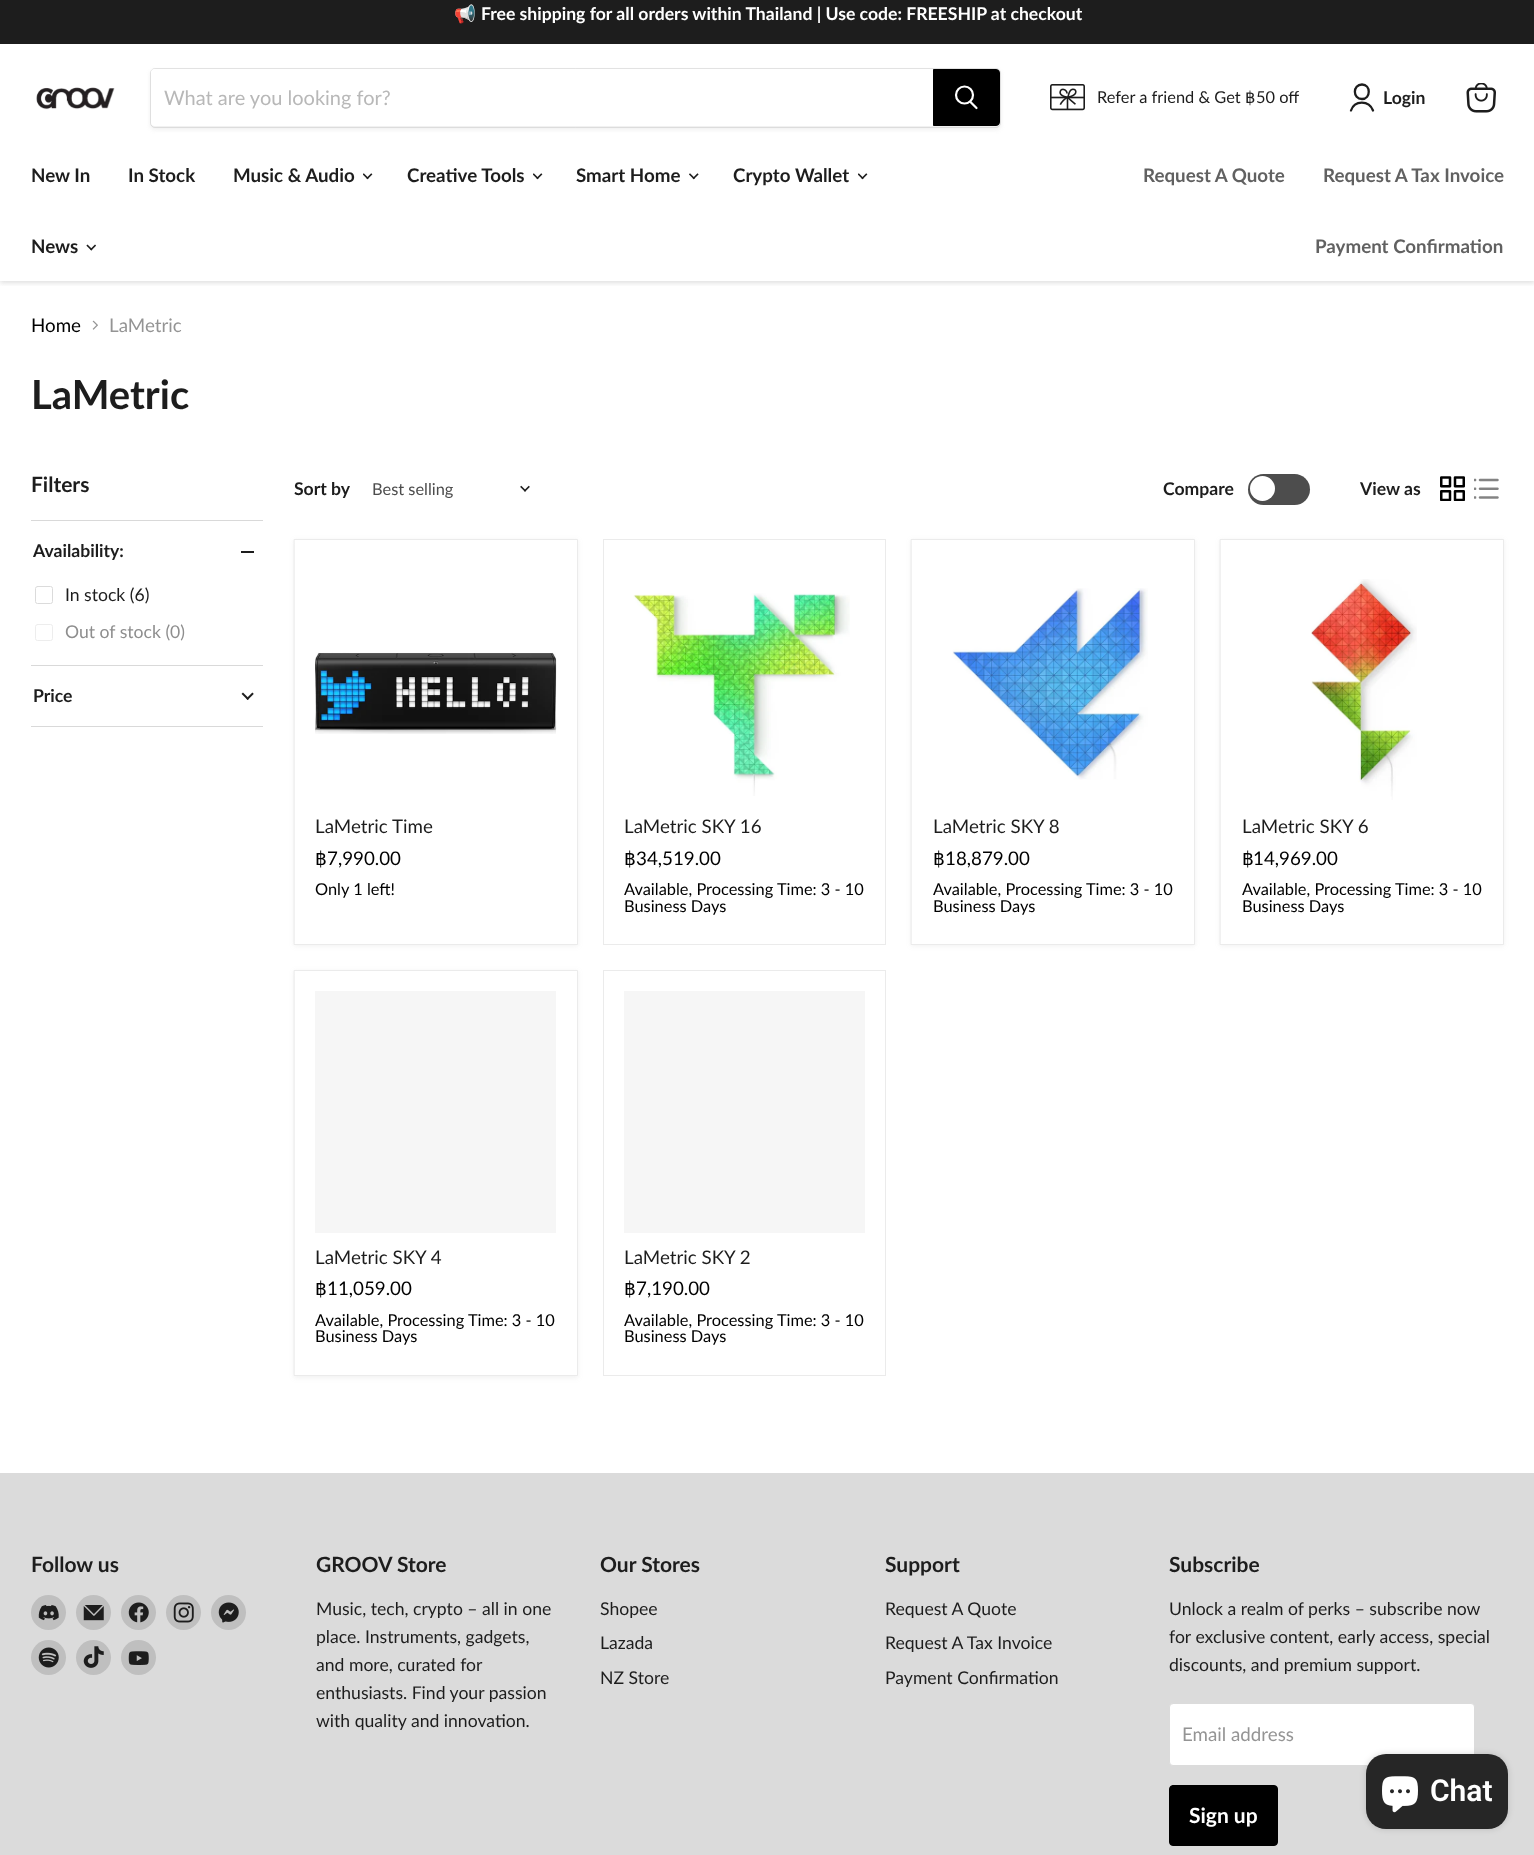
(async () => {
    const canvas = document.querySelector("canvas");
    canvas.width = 1534;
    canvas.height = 1855;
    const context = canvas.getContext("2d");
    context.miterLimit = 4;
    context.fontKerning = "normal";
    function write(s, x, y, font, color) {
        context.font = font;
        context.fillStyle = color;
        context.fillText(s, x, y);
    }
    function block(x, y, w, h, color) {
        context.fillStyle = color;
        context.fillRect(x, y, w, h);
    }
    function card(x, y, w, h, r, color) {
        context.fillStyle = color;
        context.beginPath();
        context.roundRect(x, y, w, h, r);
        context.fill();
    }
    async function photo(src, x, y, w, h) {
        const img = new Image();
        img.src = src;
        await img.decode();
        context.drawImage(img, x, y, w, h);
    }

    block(0, 0, 1534, 1855, "rgb(255, 255, 255)");
    context.save();
    context.beginPath();
    context.rect(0, 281, 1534, 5);
    context.clip();
    context.fillStyle = "rgba(128, 128, 128, 0.25)";
    context.filter = "blur(2.5px)";
    context.beginPath();
    context.rect(0, 45, 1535, 238);
    context.fill();
    context.filter = "none";
    context.restore();
    block(0, 0, 1534, 44, "rgb(29, 29, 29)");
    write("📢", 454, 20, "bold 17.6px Noto Color Emoji", "rgb(255, 255, 255)");
    write("Free shipping for all orders within Thailand | Use code: FREESHIP at checkout", 481, 20, "bold 17.6px Lato", "rgb(255, 255, 255)");
    await photo("media/1.png", 36, 87, 79, 23);
    context.fillStyle = "rgba(128, 128, 128, 0.11)";
    context.filter = "blur(2px)";
    context.beginPath();
    context.roundRect(150, 70, 851, 60, 5);
    context.fill();
    context.filter = "none";
    context.beginPath();
    context.roundRect(150.5, 68.5, 850, 59, 4.5);
    context.strokeStyle = "rgba(128, 128, 128, 0.2)";
    context.stroke();
    context.fillStyle = "rgb(255, 255, 255)";
    context.beginPath();
    context.roundRect(151, 69, 782, 57, [4, 0, 0, 4]);
    context.fill();
    write("What are you looking for?", 164, 105, "20px Lato", "rgb(184, 184, 184)");
    context.fillStyle = "rgb(0, 0, 0)";
    context.beginPath();
    context.roundRect(933.5, 69.5, 66, 56, [0, 3.5, 3.5, 0]);
    context.fill();
    context.strokeStyle = "rgb(0, 0, 0)";
    context.stroke();
    context.beginPath();
    context.moveTo(976.5, 108);
    context.lineTo(970.5, 102);
    context.strokeStyle = "rgb(255, 255, 255)";
    context.lineWidth = 2.2;
    context.lineCap = "round";
    context.stroke();
    context.beginPath();
    context.arc(964.5, 95, 8.5, 0, Math.PI * 2);
    context.stroke();
    await photo("media/2.png", 1050, 84, 35, 27);
    write("Refer a friend & Get", 1097, 103, "16.4px Lato", "rgb(29, 29, 29)");
    write("฿", 1245, 103, "16.4px DejaVu Sans", "rgb(29, 29, 29)");
    write("50 off", 1256, 103, "16.4px Lato", "rgb(29, 29, 29)");
    context.beginPath();
    context.moveTo(1362, 99);
    context.bezierCurveTo(1371, 99, 1371, 84.5, 1362, 84.5);
    context.bezierCurveTo(1352.5, 84.5, 1352.5, 99, 1362, 99);
    context.closePath();
    context.moveTo(1373, 110.5);
    context.bezierCurveTo(1369, 100, 1354.5, 100, 1351, 110.5);
    context.strokeStyle = "rgb(29, 29, 29)";
    context.lineWidth = 2.3;
    context.lineJoin = "round";
    context.stroke();
    write("Login", 1383, 104, "bold 17.6px Lato", "rgb(29, 29, 29)");
    await photo("media/3.png", 1466, 83, 30, 30);
    write("New In", 31, 182, "bold 18.75px Lato", "rgb(29, 29, 29)");
    write("In Stock", 128, 182, "bold 18.75px Lato", "rgb(29, 29, 29)");
    write("Music & Audio", 233, 182, "bold 18.75px Lato", "rgb(29, 29, 29)");
    await photo("media/4.png", 363, 173, 10, 7);
    write("Creative Tools", 407, 182, "bold 18.75px Lato", "rgb(29, 29, 29)");
    await photo("media/4.png", 533, 173, 10, 7);
    write("Smart Home", 576, 182, "bold 18.75px Lato", "rgb(29, 29, 29)");
    await photo("media/5.png", 689, 173, 10, 7);
    write("Crypto Wallet", 733, 182, "bold 18.75px Lato", "rgb(29, 29, 29)");
    await photo("media/4.png", 858, 173, 10, 7);
    write("News", 31, 253, "bold 18.75px Lato", "rgb(29, 29, 29)");
    await photo("media/6.png", 86, 244, 10, 7);
    write("Request A Quote", 1143, 182, "bold 18.75px Lato", "rgb(97, 97, 97)");
    write("Request A Tax Invoice", 1323, 182, "bold 18.75px Lato", "rgb(97, 97, 97)");
    write("Payment Confirmation", 1315, 253, "bold 18.75px Lato", "rgb(97, 97, 97)");
    write("Home", 31, 332, "18.75px Lato", "rgb(0, 0, 0)");
    await photo("media/7.png", 92, 320, 6, 10);
    write("LaMetric", 109, 332, "18.75px Lato", "rgb(148, 148, 148)");
    write("LaMetric", 31, 409, "bold 40px Lato", "rgb(29, 29, 29)");
    write("Filters", 31, 492, "bold 21px Lato", "rgb(29, 29, 29)");
    block(31, 520, 232, 1, "rgb(217, 217, 217)");
    write("Availability:", 33, 557, "bold 17.6px Lato", "rgb(29, 29, 29)");
    block(241, 551, 13, 2, "rgb(29, 29, 29)");
    context.beginPath();
    context.roundRect(35.5, 586.5, 17, 17, 2);
    context.strokeStyle = "rgb(219, 219, 219)";
    context.lineWidth = 1;
    context.lineJoin = "miter";
    context.stroke();
    write("In stock (6)", 65, 601, "17.6px Lato", "rgb(29, 29, 29)");
    context.beginPath();
    context.roundRect(35.5, 624.5, 17, 16, 2);
    context.strokeStyle = "rgb(237, 237, 237)";
    context.stroke();
    write("Out of stock (0)", 65, 638, "17.6px Lato", "rgb(142, 142, 142)");
    block(31, 665, 232, 1, "rgb(217, 217, 217)");
    block(31, 726, 232, 1, "rgb(217, 217, 217)");
    write("Price", 33, 702, "bold 17.6px Lato", "rgb(29, 29, 29)");
    await photo("media/8.png", 241, 692, 13, 8);
    write("Sort by", 294, 495, "bold 17.6px Lato", "rgb(29, 29, 29)");
    write("Best selling", 372, 495, "16.4px Lato", "rgb(77, 77, 77)");
    await photo("media/9.png", 520, 485, 10, 7);
    write("Compare", 1163, 495, "bold 17.6px Lato", "rgb(29, 29, 29)");
    card(1248, 474, 62, 31, 15.5, "rgb(77, 77, 77)");
    context.fillStyle = "rgb(255, 255, 255)";
    context.beginPath();
    context.arc(1262.5, 488.5, 12.5, 0, Math.PI * 2);
    context.fill();
    write("View as", 1360, 495, "bold 17.6px Lato", "rgb(29, 29, 29)");
    await photo("media/10.png", 1440, 476, 25, 25);
    await photo("media/11.png", 1474, 478, 25, 21);
    context.fillStyle = "rgba(128, 128, 128, 0.11)";
    context.filter = "blur(2.5px)";
    context.beginPath();
    context.rect(294, 540, 284, 406);
    context.fill();
    context.filter = "none";
    context.fillStyle = "rgb(255, 255, 255)";
    context.beginPath();
    context.rect(294.5, 539.5, 283, 405);
    context.fill();
    context.strokeStyle = "rgb(235, 235, 235)";
    context.stroke();
    await photo("media/12.png", 315, 652, 242, 82);
    write("LaMetric Time", 315, 833, "18.75px Lato", "rgb(29, 29, 29)");
    write("฿", 315, 865, "18.75px DejaVu Sans", "rgb(0, 0, 0)");
    write("7,990.00", 327, 865, "18.75px Lato", "rgb(0, 0, 0)");
    write("Only 1 left!", 315, 895, "16.4px Lato", "rgb(0, 0, 0)");
    context.strokeRect(603.5, 539.5, 282, 405);
    await photo("media/13.png", 633, 593, 217, 203);
    write("LaMetric SKY 16", 624, 833, "18.75px Lato", "rgb(29, 29, 29)");
    write("฿", 624, 865, "18.75px DejaVu Sans", "rgb(0, 0, 0)");
    write("34,519.00", 636, 865, "18.75px Lato", "rgb(0, 0, 0)");
    write("Available, Processing Time: 3 - 10", 624, 895, "16.4px Lato", "rgb(0, 0, 0)");
    write("Business Days", 624, 912, "16.4px Lato", "rgb(0, 0, 0)");
    context.fillStyle = "rgba(128, 128, 128, 0.11)";
    context.filter = "blur(2.5px)";
    context.beginPath();
    context.rect(911, 540, 284, 406);
    context.fill();
    context.filter = "none";
    context.fillStyle = "rgb(255, 255, 255)";
    context.beginPath();
    context.rect(911.5, 539.5, 283, 405);
    context.fill();
    context.stroke();
    await photo("media/14.png", 952, 588, 196, 192);
    write("LaMetric SKY 8", 933, 833, "18.75px Lato", "rgb(29, 29, 29)");
    write("฿", 933, 865, "18.75px DejaVu Sans", "rgb(0, 0, 0)");
    write("18,879.00", 945, 865, "18.75px Lato", "rgb(0, 0, 0)");
    write("Available, Processing Time: 3 - 10", 933, 895, "16.4px Lato", "rgb(0, 0, 0)");
    write("Business Days", 933, 912, "16.4px Lato", "rgb(0, 0, 0)");
    context.fillStyle = "rgba(128, 128, 128, 0.11)";
    context.filter = "blur(2.5px)";
    context.beginPath();
    context.rect(1220, 540, 284, 406);
    context.fill();
    context.filter = "none";
    context.fillStyle = "rgb(255, 255, 255)";
    context.beginPath();
    context.rect(1220.5, 539.5, 283, 405);
    context.fill();
    context.stroke();
    await photo("media/15.png", 1311, 579, 106, 221);
    write("LaMetric SKY 6", 1242, 833, "18.75px Lato", "rgb(29, 29, 29)");
    write("฿", 1242, 865, "18.75px DejaVu Sans", "rgb(0, 0, 0)");
    write("14,969.00", 1253, 865, "18.75px Lato", "rgb(0, 0, 0)");
    write("Available, Processing Time: 3 - 10", 1242, 895, "16.4px Lato", "rgb(0, 0, 0)");
    write("Business Days", 1242, 912, "16.4px Lato", "rgb(0, 0, 0)");
    context.fillStyle = "rgba(128, 128, 128, 0.11)";
    context.filter = "blur(2.5px)";
    context.beginPath();
    context.rect(294, 971, 284, 407);
    context.fill();
    context.filter = "none";
    context.fillStyle = "rgb(255, 255, 255)";
    context.beginPath();
    context.rect(294.5, 970.5, 283, 405);
    context.fill();
    context.stroke();
    block(315, 991, 241, 242, "rgb(246, 246, 246)");
    write("LaMetric SKY 4", 315, 1264, "18.75px Lato", "rgb(29, 29, 29)");
    write("฿", 315, 1295, "18.75px DejaVu Sans", "rgb(0, 0, 0)");
    write("11,059.00", 327, 1295, "18.75px Lato", "rgb(0, 0, 0)");
    write("Available, Processing Time: 3 - 10", 315, 1326, "16.4px Lato", "rgb(0, 0, 0)");
    write("Business Days", 315, 1342, "16.4px Lato", "rgb(0, 0, 0)");
    context.strokeRect(603.5, 970.5, 282, 405);
    block(624, 991, 241, 242, "rgb(246, 246, 246)");
    write("LaMetric SKY 2", 624, 1264, "18.75px Lato", "rgb(29, 29, 29)");
    write("฿", 624, 1295, "18.75px DejaVu Sans", "rgb(0, 0, 0)");
    write("7,190.00", 636, 1295, "18.75px Lato", "rgb(0, 0, 0)");
    write("Available, Processing Time: 3 - 10", 624, 1326, "16.4px Lato", "rgb(0, 0, 0)");
    write("Business Days", 624, 1342, "16.4px Lato", "rgb(0, 0, 0)");
    block(0, 1473, 1534, 382, "rgb(219, 219, 219)");
    write("Follow us", 31, 1572, "bold 21px Lato", "rgb(29, 29, 29)");
    context.fillStyle = "rgb(191, 191, 191)";
    context.beginPath();
    context.arc(48.5, 1612.5, 17.5, 0, Math.PI * 2);
    context.fill();
    await photo("media/16.png", 38, 1605, 21, 16);
    context.beginPath();
    context.arc(93.5, 1612.5, 17.5, 0, Math.PI * 2);
    context.fill();
    await photo("media/17.png", 83, 1605, 21, 16);
    context.beginPath();
    context.arc(138.5, 1612.5, 17.5, 0, Math.PI * 2);
    context.fill();
    await photo("media/18.png", 128, 1602, 21, 21);
    context.beginPath();
    context.arc(183.5, 1612.5, 17.5, 0, Math.PI * 2);
    context.fill();
    await photo("media/19.png", 173, 1602, 21, 21);
    context.beginPath();
    context.arc(228.5, 1612.5, 17.5, 0, Math.PI * 2);
    context.fill();
    await photo("media/20.png", 218, 1602, 21, 21);
    context.beginPath();
    context.arc(48.5, 1657.5, 17.5, 0, Math.PI * 2);
    context.fill();
    await photo("media/21.png", 38, 1647, 21, 21);
    context.beginPath();
    context.arc(93.5, 1657.5, 17.5, 0, Math.PI * 2);
    context.fill();
    await photo("media/22.png", 83, 1646, 21, 22);
    context.beginPath();
    context.arc(138.5, 1657.5, 17.5, 0, Math.PI * 2);
    context.fill();
    await photo("media/23.png", 128, 1651, 21, 14);
    write("GROOV Store", 316, 1572, "bold 21px Lato", "rgb(29, 29, 29)");
    write("Music, tech, crypto – all in one", 316, 1615, "17.6px Lato", "rgb(29, 29, 29)");
    write("place. Instruments, gadgets,", 316, 1643, "17.6px Lato", "rgb(29, 29, 29)");
    write("and more, curated for", 316, 1671, "17.6px Lato", "rgb(29, 29, 29)");
    write("enthusiasts. Find your passion", 316, 1699, "17.6px Lato", "rgb(29, 29, 29)");
    write("with quality and innovation.", 316, 1727, "17.6px Lato", "rgb(29, 29, 29)");
    write("Our Stores", 600, 1572, "bold 21px Lato", "rgb(29, 29, 29)");
    write("Shopee", 600, 1615, "17.6px Lato", "rgb(29, 29, 29)");
    write("Lazada", 600, 1649, "17.6px Lato", "rgb(29, 29, 29)");
    write("NZ Store", 600, 1684, "17.6px Lato", "rgb(29, 29, 29)");
    write("Support", 885, 1572, "bold 21px Lato", "rgb(29, 29, 29)");
    write("Request A Quote", 885, 1615, "17.6px Lato", "rgb(29, 29, 29)");
    write("Request A Tax Invoice", 885, 1649, "17.6px Lato", "rgb(29, 29, 29)");
    write("Payment Confirmation", 885, 1684, "17.6px Lato", "rgb(29, 29, 29)");
    write("Subscribe", 1169, 1572, "bold 21px Lato", "rgb(29, 29, 29)");
    write("Unlock a realm of perks – subscribe now", 1169, 1615, "17.6px Lato", "rgb(29, 29, 29)");
    write("for exclusive content, early access, special", 1169, 1643, "17.6px Lato", "rgb(29, 29, 29)");
    write("discounts, and premium support.", 1169, 1671, "17.6px Lato", "rgb(29, 29, 29)");
    context.fillStyle = "rgb(255, 255, 255)";
    context.beginPath();
    context.roundRect(1169.5, 1703.5, 305, 62, 3.5);
    context.fill();
    context.strokeStyle = "rgb(219, 219, 219)";
    context.stroke();
    write("Email address", 1182, 1741, "18.75px Lato", "rgb(148, 148, 148)");
    context.fillStyle = "rgb(0, 0, 0)";
    context.beginPath();
    context.roundRect(1169.5, 1785.5, 108, 60, 3.5);
    context.fill();
    context.strokeStyle = "rgb(0, 0, 0)";
    context.stroke();
    write("Sign up", 1189, 1823, "bold 21px Lato", "rgb(255, 255, 255)");
    context.fillStyle = "rgba(0, 0, 0, 0.15)";
    context.filter = "blur(3px)";
    context.beginPath();
    context.roundRect(1366, 1754, 142, 75, 20);
    context.fill();
    context.filter = "none";
    card(1366, 1754, 142, 75, 20, "rgb(38, 38, 38)");
    await photo("media/24.png", 1382, 1776, 36, 37);
    write("Chat", 1430, 1801, "600 30px Roboto", "rgb(255, 255, 255)");
})();
